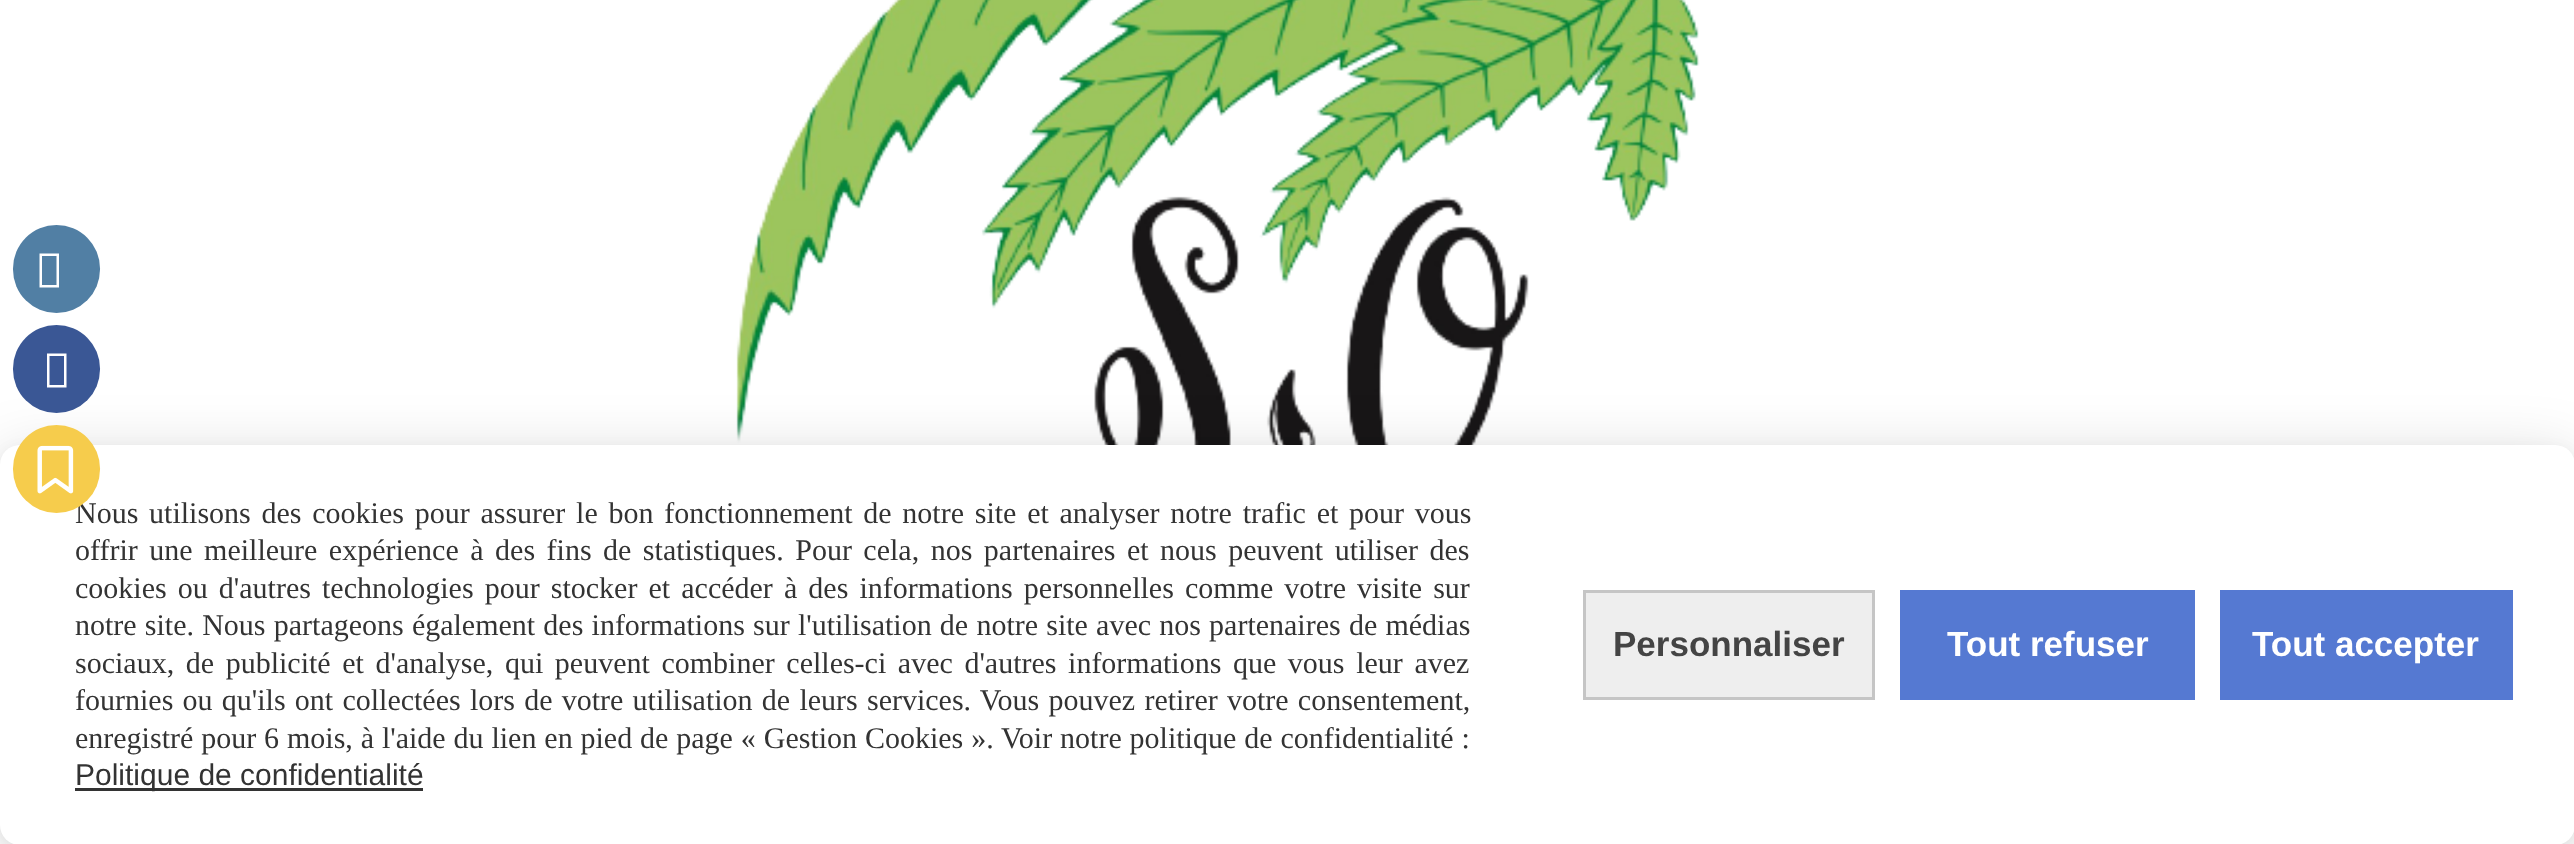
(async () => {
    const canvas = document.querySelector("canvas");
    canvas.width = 2574;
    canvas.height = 844;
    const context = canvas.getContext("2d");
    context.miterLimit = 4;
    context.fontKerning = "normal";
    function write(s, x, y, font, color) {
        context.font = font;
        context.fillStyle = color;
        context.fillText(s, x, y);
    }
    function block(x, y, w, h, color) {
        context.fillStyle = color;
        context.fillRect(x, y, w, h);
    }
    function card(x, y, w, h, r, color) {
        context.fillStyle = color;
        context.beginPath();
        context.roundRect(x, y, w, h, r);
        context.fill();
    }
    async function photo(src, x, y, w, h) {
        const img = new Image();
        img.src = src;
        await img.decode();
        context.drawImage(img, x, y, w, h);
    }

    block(0, 0, 2574, 844, "rgb(255, 255, 255)");
    card(13, 225, 87, 88, 43.5, "rgb(81, 127, 164)");
    context.fillStyle = "rgb(255, 255, 255)";
    context.beginPath();
    context.moveTo(39.5, 287.5);
    context.lineTo(39.5, 253.5);
    context.lineTo(59, 253.5);
    context.lineTo(59, 287.5);
    context.closePath();
    context.moveTo(42, 285);
    context.lineTo(56.5, 285);
    context.lineTo(56.5, 256);
    context.lineTo(42, 256);
    context.closePath();
    context.fill();
    await photo("media/2.png", 736, 0, 964, 445);
    context.fillStyle = "rgba(0, 0, 0, 0.15)";
    context.filter = "blur(30px)";
    context.beginPath();
    context.roundRect(0, 455, 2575, 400, 20);
    context.fill();
    context.filter = "none";
    card(13, 325, 87, 88, 43.5, "rgb(58, 87, 149)");
    context.fillStyle = "rgb(255, 255, 255)";
    context.beginPath();
    context.moveTo(47, 387.5);
    context.lineTo(47, 353.5);
    context.lineTo(66.5, 353.5);
    context.lineTo(66.5, 387.5);
    context.closePath();
    context.moveTo(49.5, 385);
    context.lineTo(64, 385);
    context.lineTo(64, 356);
    context.lineTo(49.5, 356);
    context.closePath();
    context.fill();
    context.fillStyle = "rgba(0, 0, 0, 0.05)";
    context.filter = "blur(7.5px)";
    context.beginPath();
    context.roundRect(0, 450, 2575, 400, 20);
    context.fill();
    context.filter = "none";
    card(0, 445, 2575, 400, 20, "rgb(255, 255, 255)");
    context.wordSpacing = "3.25px";
    write("Nous utilisons des cookies pour assurer le bon fonctionnement de notre site et analyser notre trafic et pour vous", 75, 523, "30px Liberation Serif", "rgb(51, 51, 51)");
    card(13, 425, 87, 88, 43.5, "rgb(246, 204, 76)");
    await photo("media/1.png", 37, 445, 37, 49);
    context.wordSpacing = "4px";
    write("offrir une meilleure expérience à des fins de statistiques. Pour cela, nos partenaires et nous peuvent utiliser des", 75, 560, "30px Liberation Serif", "rgb(51, 51, 51)");
    context.wordSpacing = "3.6px";
    write("cookies ou d'autres technologies pour stocker et accéder à des informations personnelles comme votre visite sur", 75, 598, "30px Liberation Serif", "rgb(51, 51, 51)");
    context.wordSpacing = "0.7px";
    write("notre site. Nous partageons également des informations sur l'utilisation de notre site avec nos partenaires de médias", 75, 635, "30px Liberation Serif", "rgb(51, 51, 51)");
    context.wordSpacing = "4.1px";
    write("sociaux, de publicité et d'analyse, qui peuvent combiner celles-ci avec d'autres informations que vous leur avez", 75, 673, "30px Liberation Serif", "rgb(51, 51, 51)");
    context.wordSpacing = "1.75px";
    write("fournies ou qu'ils ont collectées lors de votre utilisation de leurs services. Vous pouvez retirer votre consentement,", 75, 710, "30px Liberation Serif", "rgb(51, 51, 51)");
    context.wordSpacing = "0.4px";
    write("enregistré pour 6 mois, à l'aide du lien en pied de page « Gestion Cookies ». Voir notre politique de confidentialité :", 75, 748, "30px Liberation Serif", "rgb(51, 51, 51)");
    block(75, 788, 348, 3, "rgb(51, 51, 51)");
    context.wordSpacing = "0px";
    write("Politique de confidentialité", 75, 785, "30px Liberation Sans", "rgb(51, 51, 51)");
    context.fillStyle = "rgb(238, 238, 238)";
    context.beginPath();
    context.rect(1584.5, 591.5, 289, 107);
    context.fill();
    context.strokeStyle = "rgb(197, 197, 197)";
    context.lineWidth = 3;
    context.stroke();
    write("Personnaliser", 1613, 656, "bold 35px Liberation Sans", "rgb(68, 68, 68)");
    block(1900, 590, 295, 110, "rgb(85, 121, 210)");
    write("Tout refuser", 1947, 656, "bold 35px Liberation Sans", "rgb(255, 255, 255)");
    block(2220, 590, 293, 110, "rgb(85, 121, 210)");
    write("Tout accepter", 2252, 656, "bold 35px Liberation Sans", "rgb(255, 255, 255)");
})();
